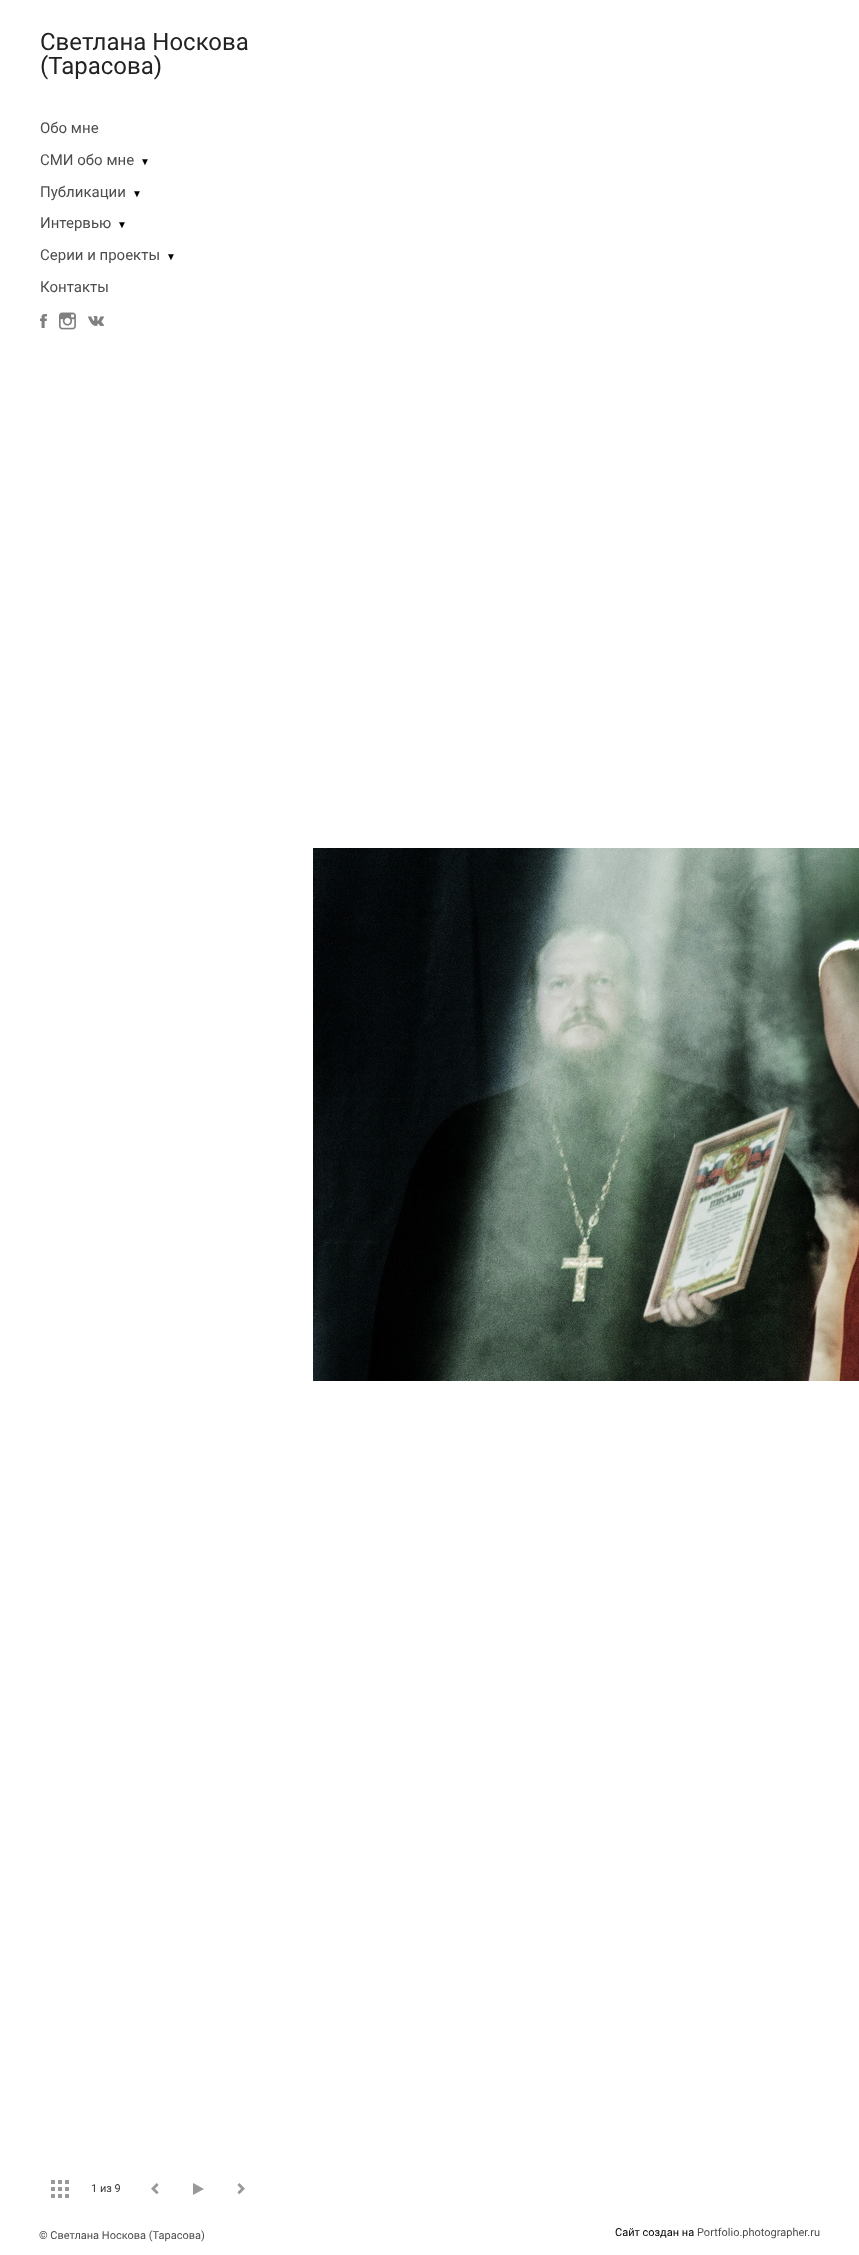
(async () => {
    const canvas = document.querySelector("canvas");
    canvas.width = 859;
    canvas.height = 2255;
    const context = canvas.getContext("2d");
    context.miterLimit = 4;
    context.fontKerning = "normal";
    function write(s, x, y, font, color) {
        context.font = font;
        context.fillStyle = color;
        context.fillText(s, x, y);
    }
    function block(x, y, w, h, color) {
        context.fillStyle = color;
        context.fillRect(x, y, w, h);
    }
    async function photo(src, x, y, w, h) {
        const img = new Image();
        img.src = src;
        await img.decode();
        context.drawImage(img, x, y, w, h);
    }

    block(0, 0, 859, 2255, "rgb(255, 255, 255)");
    write("Светлана Носкова", 40, 50, "24px Roboto", "rgb(34, 34, 34)");
    write("(Тарасова)", 40, 74, "24px Roboto", "rgb(34, 34, 34)");
    write("Обо мне", 40, 133, "15px Roboto", "rgb(77, 77, 77)");
    write("СМИ обо мне", 40, 165, "15px Roboto", "rgb(77, 77, 77)");
    write("▼", 140, 165, "10px Liberation Serif", "rgb(0, 0, 0)");
    write("Публикации", 40, 197, "15px Roboto", "rgb(77, 77, 77)");
    write("▼", 132, 197, "10px Liberation Serif", "rgb(0, 0, 0)");
    write("Интервью", 40, 228, "15px Roboto", "rgb(77, 77, 77)");
    write("▼", 117, 228, "10px Liberation Serif", "rgb(0, 0, 0)");
    write("Серии и проекты", 40, 260, "15px Roboto", "rgb(77, 77, 77)");
    write("▼", 166, 260, "10px Liberation Serif", "rgb(0, 0, 0)");
    write("Контакты", 40, 292, "15px Roboto", "rgb(77, 77, 77)");
    await photo("media/1.png", 40, 314, 7, 14);
    await photo("media/2.png", 59, 312, 17, 18);
    await photo("media/3.png", 88, 316, 16, 10);
    await photo("media/4.png", 51, 2180, 18, 18);
    write("1 из 9", 91, 2192, "11px Roboto", "rgb(51, 51, 51)");
    await photo("media/5.png", 151, 2183, 8, 12);
    context.fillStyle = "rgb(153, 153, 153)";
    context.beginPath();
    context.moveTo(204, 2189);
    context.lineTo(193, 2195);
    context.lineTo(193, 2183);
    context.closePath();
    context.fill();
    await photo("media/6.png", 237, 2183, 8, 12);
    await photo("media/7.png", 313, 848, 546, 533);
    write("© Светлана Носкова (Тарасова)", 39, 2239, "11px Roboto", "rgb(77, 77, 77)");
    write("Сайт создан на", 615, 2236, "11px Roboto", "rgb(0, 0, 0)");
    write("Portfolio.photographer.ru", 697, 2236, "11px Roboto", "rgb(77, 77, 77)");
})();
